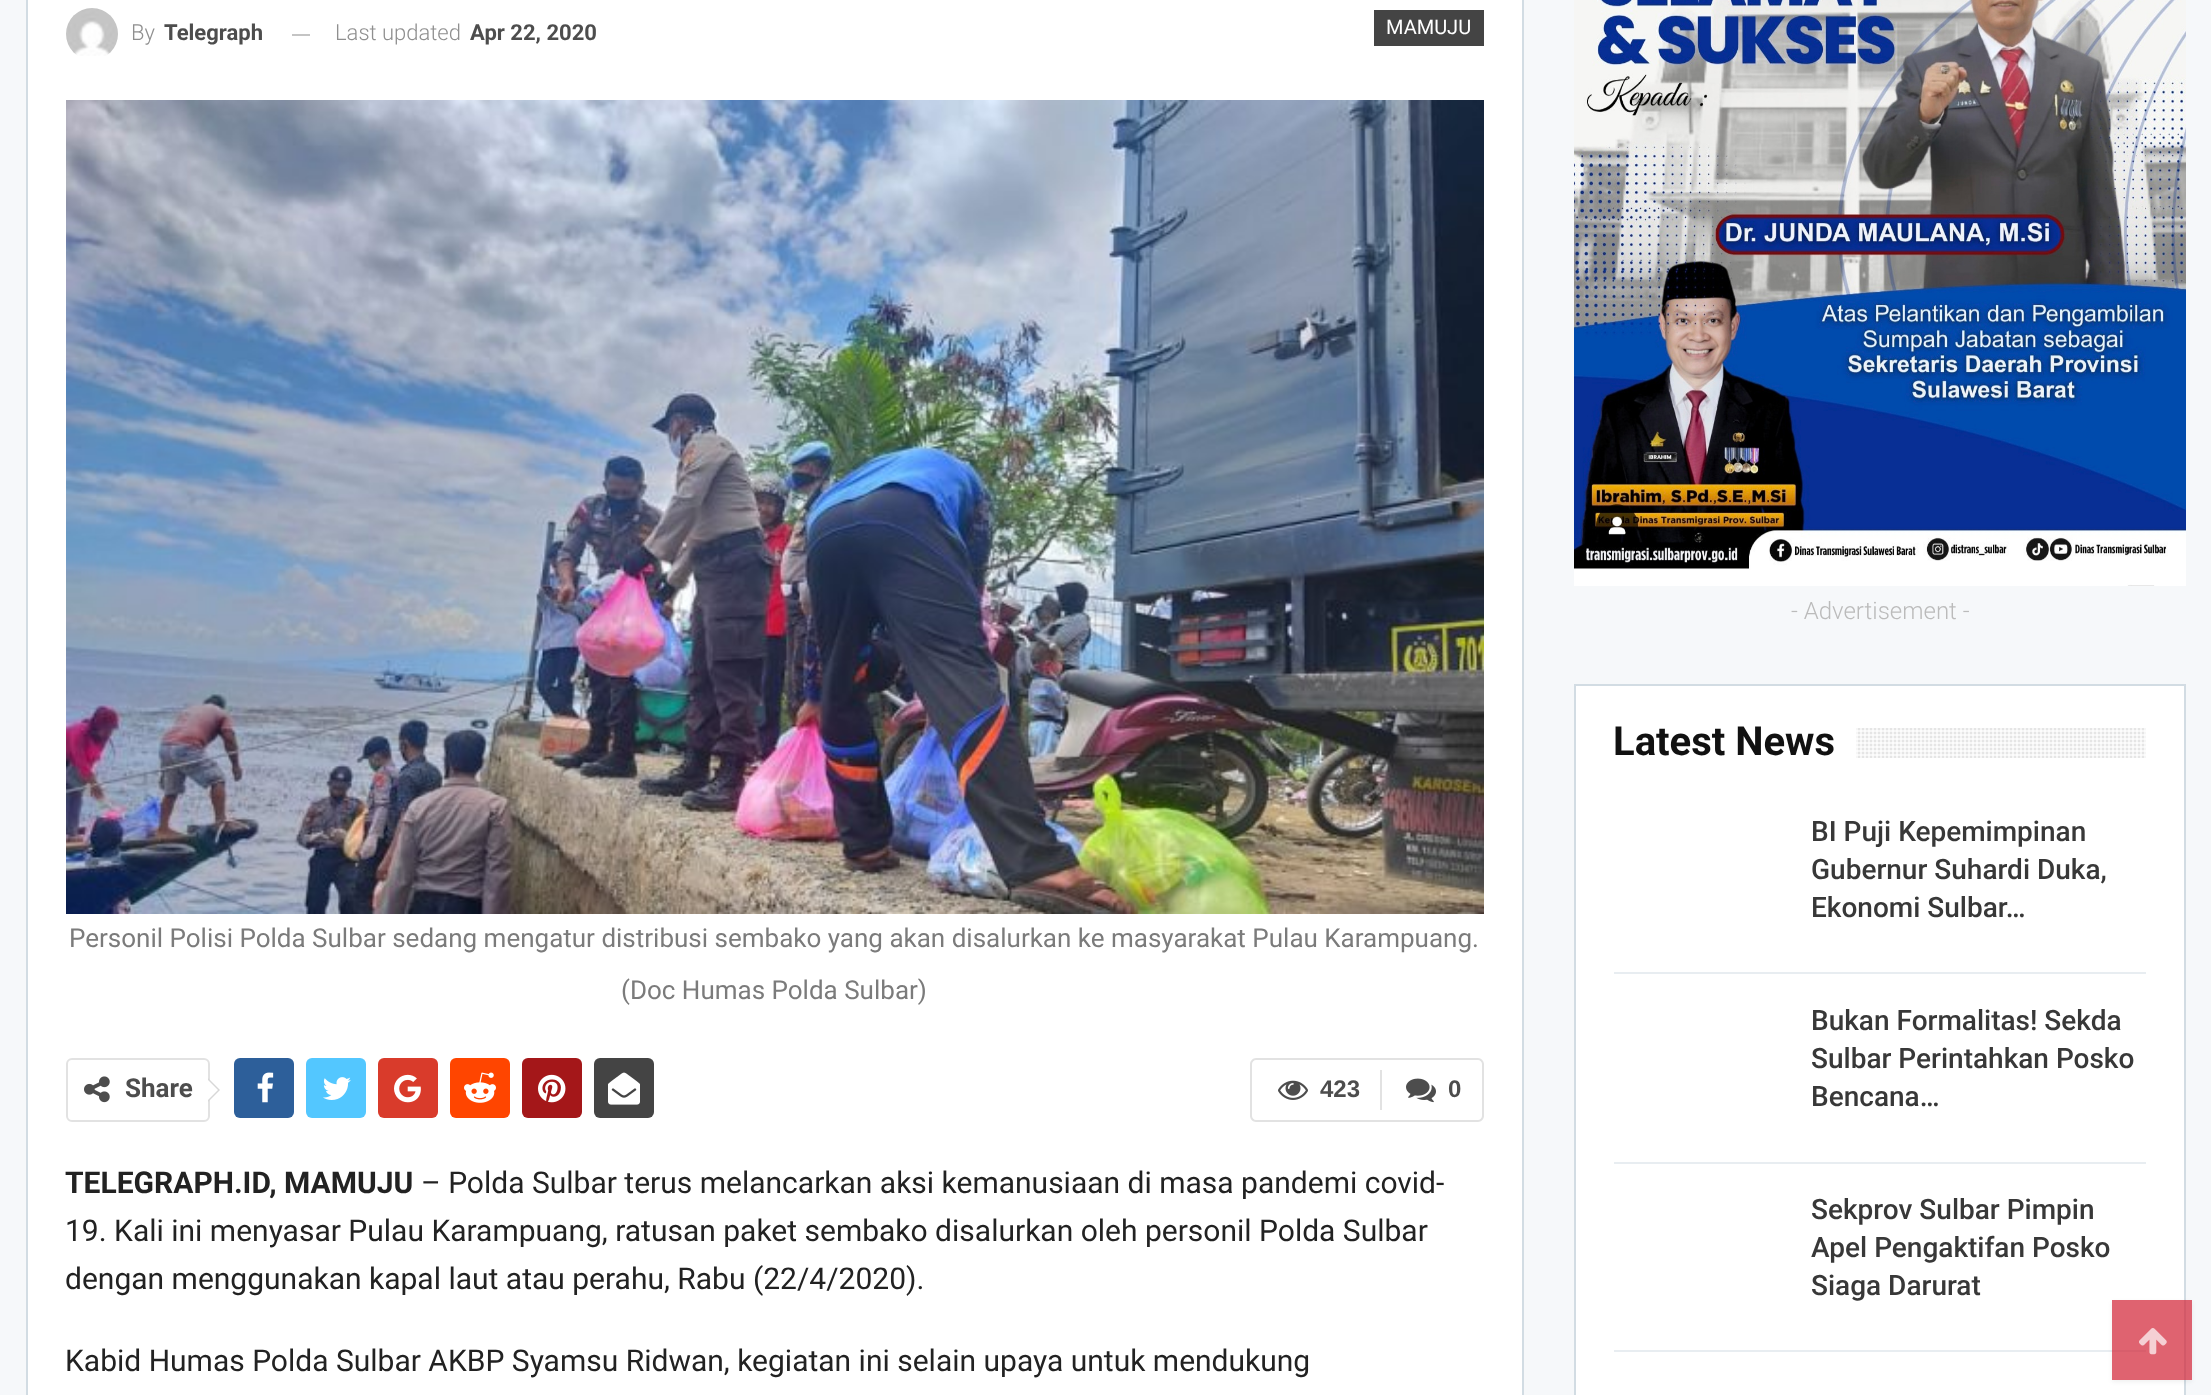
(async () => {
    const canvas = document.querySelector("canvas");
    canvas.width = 2211;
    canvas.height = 1395;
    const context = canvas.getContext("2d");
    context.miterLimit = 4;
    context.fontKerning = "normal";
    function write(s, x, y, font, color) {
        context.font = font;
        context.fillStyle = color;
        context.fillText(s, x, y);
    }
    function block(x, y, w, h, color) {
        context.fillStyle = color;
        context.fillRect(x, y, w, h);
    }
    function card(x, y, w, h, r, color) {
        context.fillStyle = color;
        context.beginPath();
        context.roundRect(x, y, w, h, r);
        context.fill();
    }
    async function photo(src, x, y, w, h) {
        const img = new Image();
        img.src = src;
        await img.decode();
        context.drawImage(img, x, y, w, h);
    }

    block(0, 0, 2211, 1395, "rgb(246, 248, 250)");
    context.fillStyle = "rgb(255, 255, 255)";
    context.beginPath();
    context.rect(27, -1, 1496, 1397);
    context.fill();
    context.strokeStyle = "rgb(210, 220, 227)";
    context.lineWidth = 2;
    context.stroke();
    await photo("media/1.png", 66, 8, 52, 48);
    write("By", 131, 40, "300 22px Roboto", "rgb(143, 143, 143)");
    write("Telegraph", 164, 40, "bold 22px Roboto", "rgb(77, 77, 77)");
    block(292, 34, 18, 2, "rgb(196, 196, 196)");
    write("Last updated", 335, 40, "300 22px Roboto", "rgb(143, 143, 143)");
    write("Apr 22, 2020", 470, 40, "bold 22px Roboto", "rgb(77, 77, 77)");
    block(1374, 10, 110, 36, "rgb(68, 68, 68)");
    write("MAMUJU", 1386, 34, "20px Roboto", "rgb(255, 255, 255)");
    await photo("media/2.png", 66, 100, 1418, 814);
    write("Personil Polisi Polda Sulbar sedang mengatur distribusi sembako yang akan disalurkan ke masyarakat Pulau Karampuang.", 69, 947, "26px Roboto", "rgb(123, 123, 123)");
    write("(Doc Humas Polda Sulbar)", 621, 999, "26px Roboto", "rgb(123, 123, 123)");
    context.beginPath();
    context.roundRect(67, 1059, 142, 62, 5);
    context.strokeStyle = "rgb(226, 226, 226)";
    context.stroke();
    await photo("media/3.png", 84, 1076, 26, 27);
    write("Share", 125, 1097, "bold 26px Roboto", "rgb(77, 77, 77)");
    context.fillStyle = "rgb(215, 215, 215)";
    context.beginPath();
    context.moveTo(208, 1102);
    context.lineTo(208, 1078);
    context.lineTo(220, 1090);
    context.closePath();
    context.fill();
    context.fillStyle = "rgb(255, 255, 255)";
    context.beginPath();
    context.moveTo(208, 1100);
    context.lineTo(208, 1080);
    context.lineTo(218, 1090);
    context.closePath();
    context.fill();
    card(234, 1058, 60, 60, 6, "rgb(45, 95, 154)");
    await photo("media/4.png", 257, 1072, 17, 31);
    card(306, 1058, 60, 60, 6, "rgb(83, 199, 255)");
    await photo("media/5.png", 323, 1077, 28, 23);
    card(378, 1058, 60, 60, 6, "rgb(217, 59, 43)");
    await photo("media/6.png", 394, 1074, 27, 29);
    card(450, 1058, 60, 60, 6, "rgb(255, 69, 0)");
    await photo("media/7.png", 464, 1072, 32, 31);
    card(522, 1058, 60, 60, 6, "rgb(164, 23, 25)");
    await photo("media/8.png", 538, 1074, 28, 29);
    card(594, 1058, 60, 60, 6, "rgb(68, 68, 68)");
    await photo("media/9.png", 608, 1072, 32, 33);
    context.fillStyle = "rgb(226, 226, 226)";
    context.beginPath();
    context.moveTo(1256, 1058);
    context.lineTo(1380, 1058);
    context.lineTo(1380, 1122);
    context.lineTo(1256, 1122);
    context.bezierCurveTo(1253, 1122, 1250, 1119, 1250, 1116);
    context.lineTo(1250, 1064);
    context.bezierCurveTo(1250, 1061, 1253, 1058, 1256, 1058);
    context.closePath();
    context.moveTo(1256, 1060);
    context.lineTo(1380, 1060);
    context.lineTo(1380, 1120);
    context.lineTo(1256, 1120);
    context.bezierCurveTo(1254, 1120, 1252, 1118, 1252, 1116);
    context.lineTo(1252, 1064);
    context.bezierCurveTo(1252, 1062, 1254, 1060, 1256, 1060);
    context.closePath();
    context.fill("evenodd");
    await photo("media/10.png", 1278, 1080, 30, 20);
    write("423", 1320, 1097, "bold 24px Liberation Sans", "rgb(77, 77, 77)");
    context.fillStyle = "rgb(226, 226, 226)";
    context.beginPath();
    context.moveTo(1380, 1058);
    context.lineTo(1478, 1058);
    context.bezierCurveTo(1481, 1058, 1484, 1061, 1484, 1064);
    context.lineTo(1484, 1116);
    context.bezierCurveTo(1484, 1119, 1481, 1122, 1478, 1122);
    context.lineTo(1380, 1122);
    context.closePath();
    context.moveTo(1380, 1060);
    context.lineTo(1478, 1060);
    context.bezierCurveTo(1480, 1060, 1482, 1062, 1482, 1064);
    context.lineTo(1482, 1116);
    context.bezierCurveTo(1482, 1118, 1480, 1120, 1478, 1120);
    context.lineTo(1380, 1120);
    context.closePath();
    context.fill("evenodd");
    block(1380, 1070, 2, 40, "rgb(226, 226, 226)");
    await photo("media/11.png", 1406, 1078, 30, 25);
    write("0", 1448, 1097, "bold 24px Liberation Sans", "rgb(77, 77, 77)");
    write("TELEGRAPH.ID, MAMUJU", 65, 1193, "bold 30px Roboto", "rgb(34, 34, 34)");
    write("– Polda Sulbar terus melancarkan aksi kemanusiaan di masa pandemi covid-", 421, 1193, "30px Roboto", "rgb(34, 34, 34)");
    write("19. Kali ini menyasar Pulau Karampuang, ratusan paket sembako disalurkan oleh personil Polda Sulbar", 65, 1241, "30px Roboto", "rgb(34, 34, 34)");
    write("dengan menggunakan kapal laut atau perahu, Rabu (22/4/2020).", 65, 1289, "30px Roboto", "rgb(34, 34, 34)");
    write("Kabid Humas Polda Sulbar AKBP Syamsu Ridwan, kegiatan ini selain upaya untuk mendukung", 65, 1371, "30px Roboto", "rgb(34, 34, 34)");
    await photo("media/12.png", 1574, 0, 612, 586);
    write("- Advertisement -", 1791, 619, "300 24px Roboto", "rgb(187, 187, 187)");
    context.fillStyle = "rgb(255, 255, 255)";
    context.beginPath();
    context.rect(1575, 685, 610, 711);
    context.fill();
    context.strokeStyle = "rgb(210, 220, 227)";
    context.stroke();
    write("Latest News", 1613, 755, "bold 40px Roboto", "rgb(17, 17, 17)");
    await photo("media/13.png", 1856, 728, 290, 30);
    block(1614, 972, 532, 2, "rgb(232, 237, 241)");
    write("BI Puji Kepemimpinan", 1811, 841, "500 28px Roboto", "rgb(56, 56, 56)");
    write("Gubernur Suhardi Duka,", 1811, 879, "500 28px Roboto", "rgb(56, 56, 56)");
    write("Ekonomi Sulbar…", 1811, 917, "500 28px Roboto", "rgb(56, 56, 56)");
    block(1614, 1162, 532, 2, "rgb(232, 237, 241)");
    write("Bukan Formalitas! Sekda", 1811, 1030, "500 28px Roboto", "rgb(56, 56, 56)");
    write("Sulbar Perintahkan Posko", 1811, 1068, "500 28px Roboto", "rgb(56, 56, 56)");
    write("Bencana…", 1811, 1106, "500 28px Roboto", "rgb(56, 56, 56)");
    block(1614, 1350, 532, 2, "rgb(232, 237, 241)");
    write("Sekprov Sulbar Pimpin", 1811, 1219, "500 28px Roboto", "rgb(56, 56, 56)");
    write("Apel Pengaktifan Posko", 1811, 1257, "500 28px Roboto", "rgb(56, 56, 56)");
    write("Siaga Darurat", 1811, 1295, "500 28px Roboto", "rgb(56, 56, 56)");
    context.save();
    context.beginPath();
    context.moveTo(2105, 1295);
    context.lineTo(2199, 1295);
    context.lineTo(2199, 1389);
    context.lineTo(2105, 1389);
    context.closePath();
    context.moveTo(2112, 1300);
    context.lineTo(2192, 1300);
    context.lineTo(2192, 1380);
    context.lineTo(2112, 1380);
    context.closePath();
    context.clip("evenodd");
    context.fillStyle = "rgba(0, 0, 0, 0.06)";
    context.filter = "blur(2px)";
    context.beginPath();
    context.rect(2112, 1302, 80, 80);
    context.fill();
    context.filter = "none";
    context.restore();
    block(2112, 1300, 80, 80, "rgba(209, 33, 51, 0.7)");
    await photo("media/14.png", 2139, 1328, 28, 27);
})();
